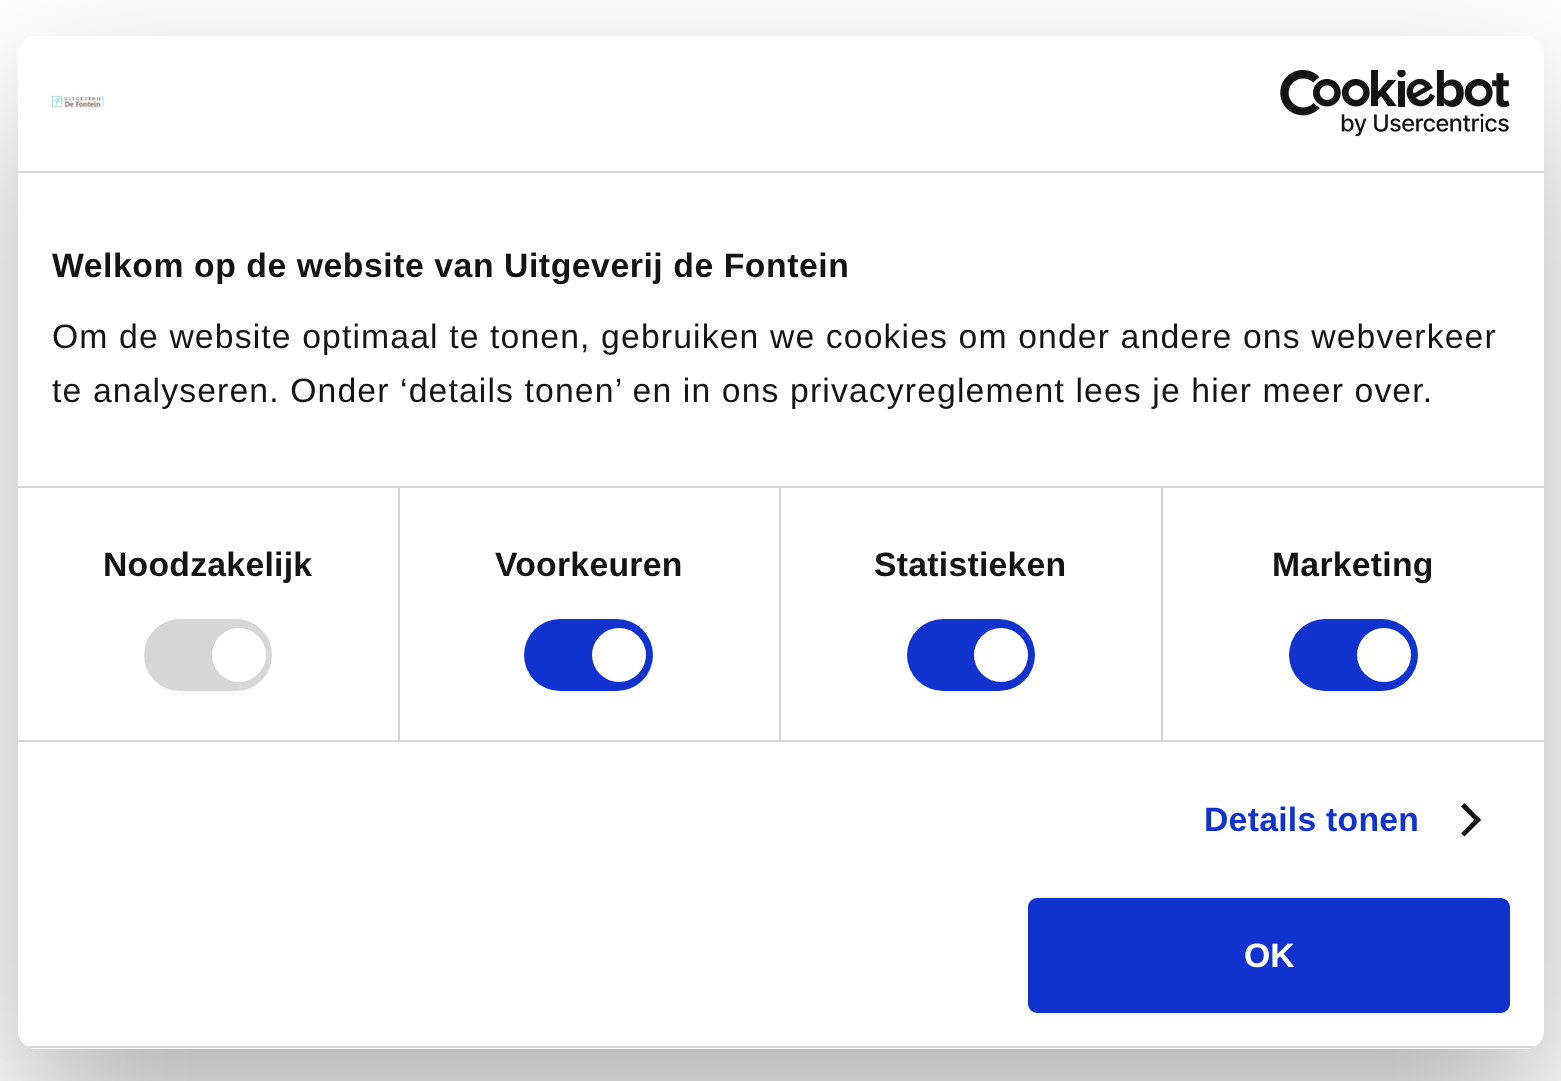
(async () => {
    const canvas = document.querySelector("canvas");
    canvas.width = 1561;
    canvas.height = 1081;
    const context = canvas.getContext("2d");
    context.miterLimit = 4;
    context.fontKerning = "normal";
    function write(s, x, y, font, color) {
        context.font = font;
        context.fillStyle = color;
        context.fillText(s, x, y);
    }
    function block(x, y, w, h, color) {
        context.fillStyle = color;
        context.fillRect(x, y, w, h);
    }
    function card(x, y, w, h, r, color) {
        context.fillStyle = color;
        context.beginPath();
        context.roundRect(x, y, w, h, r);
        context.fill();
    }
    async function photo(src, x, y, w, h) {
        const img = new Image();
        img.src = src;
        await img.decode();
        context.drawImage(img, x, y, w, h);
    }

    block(0, 0, 1561, 1081, "rgb(255, 255, 255)");
    context.fillStyle = "rgba(0, 0, 0, 0.3)";
    context.filter = "blur(76.5px)";
    context.beginPath();
    context.roundRect(18, 108, 1526, 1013, 18);
    context.fill();
    context.filter = "none";
    card(18, 36, 1526, 1013, 18, "rgb(255, 255, 255)");
    block(18, 171, 1526, 2, "rgb(214, 214, 214)");
    await photo("media/1.png", 51, 95, 53, 13);
    await photo("media/2.png", 1280, 70, 230, 67);
    block(18, 486, 1526, 2, "rgb(214, 214, 214)");
    context.letterSpacing = "0.55px";
    write("Welkom op de website van Uitgeverij de Fontein", 52, 277, "bold 33.75px Liberation Sans", "rgb(20, 20, 20)");
    context.letterSpacing = "1.12px";
    write("Om de website optimaal te tonen, gebruiken we cookies om onder andere ons webverkeer", 52, 348, "33.75px Liberation Sans", "rgb(20, 20, 20)");
    write("te analyseren. Onder ‘details tonen’ en in ons privacyreglement lees je hier meer over.", 52, 402, "33.75px Liberation Sans", "rgb(20, 20, 20)");
    block(18, 740, 1526, 2, "rgb(214, 214, 214)");
    block(398, 488, 2, 252, "rgb(214, 214, 214)");
    context.letterSpacing = "0.25px";
    write("Noodzakelijk", 103, 576, "bold 33.75px Liberation Sans", "rgb(20, 20, 20)");
    card(144, 619, 128, 72, 36, "rgb(214, 214, 214)");
    context.fillStyle = "rgb(255, 255, 255)";
    context.beginPath();
    context.arc(239, 655, 27, 0, Math.PI * 2);
    context.fill();
    block(779, 488, 2, 252, "rgb(214, 214, 214)");
    write("Voorkeuren", 495, 576, "bold 33.75px Liberation Sans", "rgb(20, 20, 20)");
    card(524, 619, 129, 72, 36, "rgb(16, 50, 207)");
    context.fillStyle = "rgb(255, 255, 255)";
    context.beginPath();
    context.arc(619, 655, 27, 0, Math.PI * 2);
    context.fill();
    block(1161, 488, 2, 252, "rgb(214, 214, 214)");
    write("Statistieken", 874, 576, "bold 33.75px Liberation Sans", "rgb(20, 20, 20)");
    card(907, 619, 128, 72, 36, "rgb(16, 50, 207)");
    context.fillStyle = "rgb(255, 255, 255)";
    context.beginPath();
    context.arc(1001, 655, 27, 0, Math.PI * 2);
    context.fill();
    write("Marketing", 1272, 576, "bold 33.75px Liberation Sans", "rgb(20, 20, 20)");
    card(1289, 619, 129, 72, 36, "rgb(16, 50, 207)");
    context.fillStyle = "rgb(255, 255, 255)";
    context.beginPath();
    context.arc(1384, 655, 27, 0, Math.PI * 2);
    context.fill();
    write("Details tonen", 1204, 831, "bold 33.75px Liberation Sans", "rgb(16, 50, 207)");
    context.fillStyle = "rgb(20, 20, 20)";
    context.beginPath();
    context.moveTo(1464.5, 803);
    context.lineTo(1481, 820);
    context.lineTo(1477.5, 823);
    context.lineTo(1461, 806.5);
    context.closePath();
    context.fill();
    context.beginPath();
    context.moveTo(1477.5, 816.5);
    context.lineTo(1481, 820);
    context.lineTo(1464.5, 836.5);
    context.lineTo(1461, 833.5);
    context.closePath();
    context.fill();
    context.save();
    context.beginPath();
    context.roundRect(18, 36, 1526, 1013, 18);
    context.clip();
    block(18, 1046, 1526, 2, "rgb(214, 214, 214)");
    context.restore();
    context.fillStyle = "rgb(16, 50, 207)";
    context.beginPath();
    context.roundRect(1030.5, 900.5, 477, 110, 6.5);
    context.fill();
    context.strokeStyle = "rgb(16, 50, 207)";
    context.lineWidth = 5;
    context.stroke();
    context.letterSpacing = "0px";
    write("OK", 1244, 967, "bold 33.75px Liberation Sans", "rgb(255, 255, 255)");
})();
